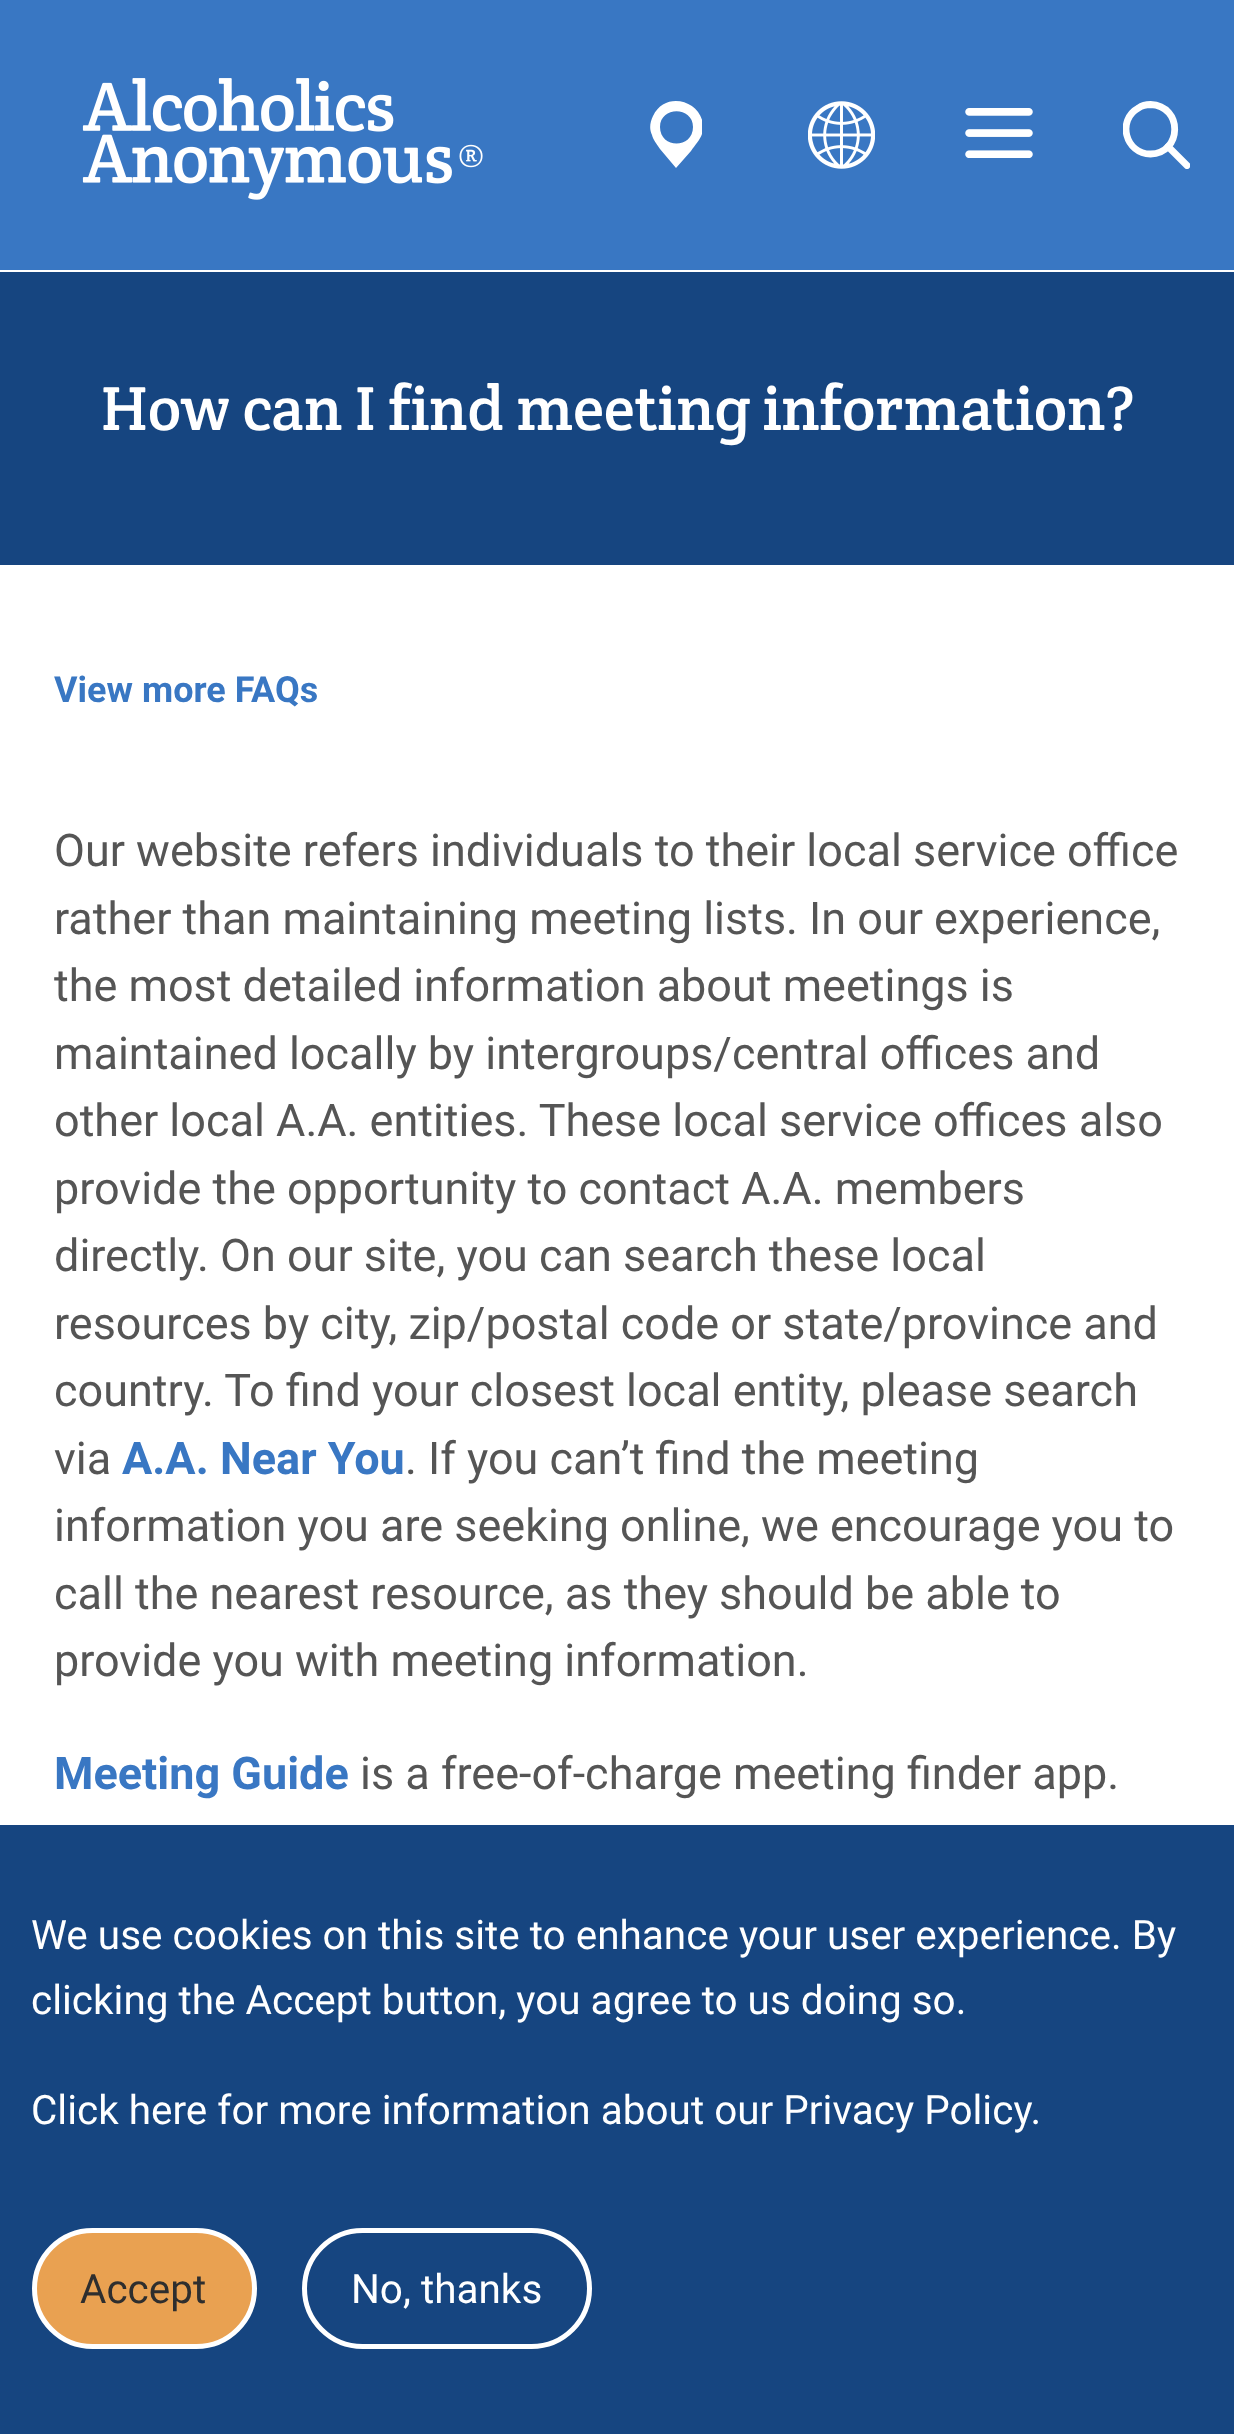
(async () => {
    const canvas = document.querySelector("canvas");
    canvas.width = 1234;
    canvas.height = 2434;
    const context = canvas.getContext("2d");
    context.miterLimit = 4;
    context.fontKerning = "normal";
    function write(s, x, y, font, color) {
        context.font = font;
        context.fillStyle = color;
        context.fillText(s, x, y);
    }
    function block(x, y, w, h, color) {
        context.fillStyle = color;
        context.fillRect(x, y, w, h);
    }
    async function photo(src, x, y, w, h) {
        const img = new Image();
        img.src = src;
        await img.decode();
        context.drawImage(img, x, y, w, h);
    }

    block(0, 0, 1234, 2434, "rgb(255, 255, 255)");
    block(0, 0, 1234, 270, "rgb(57, 119, 195)");
    await photo("media/1.png", 82, 78, 401, 122);
    context.save();
    context.beginPath();
    context.rect(650, 101, 52, 68);
    context.clip();
    context.fillStyle = "rgb(255, 255, 255)";
    context.beginPath();
    context.moveTo(660, 127);
    context.bezierCurveTo(660, 149, 693, 149, 693, 127);
    context.bezierCurveTo(693, 106, 660, 106, 660, 127);
    context.moveTo(676, 168);
    context.lineTo(660, 149);
    context.bezierCurveTo(657, 144, 653, 140, 652, 135);
    context.bezierCurveTo(649, 129, 650, 122, 653, 116);
    context.bezierCurveTo(667, 87, 710, 104, 702, 134);
    context.bezierCurveTo(700, 140, 695, 145, 691, 151);
    context.lineTo(676, 168);
    context.fill("evenodd");
    context.restore();
    await photo("media/2.png", 808, 101, 67, 68);
    await photo("media/3.png", 965, 108, 68, 50);
    context.save();
    context.beginPath();
    context.rect(1123, 101, 67, 68);
    context.clip();
    context.beginPath();
    context.moveTo(1150.5, 154);
    context.bezierCurveTo(1125.5, 154, 1116.5, 120, 1138.5, 108);
    context.bezierCurveTo(1142, 105.5, 1146.5, 104.5, 1150.5, 104.5);
    context.bezierCurveTo(1183.5, 106, 1182, 153.5, 1150.5, 154);
    context.closePath();
    context.strokeStyle = "rgb(255, 255, 255)";
    context.lineWidth = 6.8;
    context.stroke();
    context.beginPath();
    context.moveTo(1168, 146.5);
    context.lineTo(1187, 165.5);
    context.lineCap = "round";
    context.stroke();
    context.restore();
    block(0, 272, 1234, 293, "rgb(22, 69, 128)");
    write("How can I find meeting information?", 101, 430, "63px Crete Round", "rgb(255, 255, 255)");
    write("View more FAQs", 54, 702, "bold 36px Roboto", "rgb(57, 119, 195)");
    write("Our website refers individuals to their local service office", 54, 866, "45px Roboto", "rgb(85, 85, 85)");
    write("rather than maintaining meeting lists. In our experience,", 54, 934, "45px Roboto", "rgb(85, 85, 85)");
    write("the most detailed information about meetings is", 54, 1001, "45px Roboto", "rgb(85, 85, 85)");
    write("maintained locally by intergroups/central offices and", 54, 1069, "45px Roboto", "rgb(85, 85, 85)");
    write("other local A.A. entities. These local service offices also", 54, 1136, "45px Roboto", "rgb(85, 85, 85)");
    write("provide the opportunity to contact A.A. members", 54, 1204, "45px Roboto", "rgb(85, 85, 85)");
    write("directly. On our site, you can search these local", 54, 1271, "45px Roboto", "rgb(85, 85, 85)");
    write("resources by city, zip/postal code or state/province and", 54, 1339, "45px Roboto", "rgb(85, 85, 85)");
    write("country. To find your closest local entity, please search", 54, 1406, "45px Roboto", "rgb(85, 85, 85)");
    write("via", 54, 1474, "45px Roboto", "rgb(85, 85, 85)");
    write("A.A. Near You", 122, 1474, "bold 45px Roboto", "rgb(57, 119, 195)");
    write(". If you can’t find the meeting", 405, 1474, "45px Roboto", "rgb(85, 85, 85)");
    write("information you are seeking online, we encourage you to", 54, 1541, "45px Roboto", "rgb(85, 85, 85)");
    write("call the nearest resource, as they should be able to", 54, 1609, "45px Roboto", "rgb(85, 85, 85)");
    write("provide you with meeting information.", 54, 1676, "45px Roboto", "rgb(85, 85, 85)");
    write("Meeting Guide", 54, 1789, "bold 45px Roboto", "rgb(57, 119, 195)");
    write("is a free-of-charge meeting finder app.", 360, 1789, "45px Roboto", "rgb(85, 85, 85)");
    block(0, 1825, 1234, 609, "rgb(22, 69, 128)");
    write("We use cookies on this site to enhance your user experience. By", 31, 1949, "40.5px Roboto", "rgb(255, 255, 255)");
    write("clicking the Accept button, you agree to us doing so.", 31, 2014, "40.5px Roboto", "rgb(255, 255, 255)");
    write("Click here for more information about our Privacy Policy.", 31, 2124, "40.5px Roboto", "rgb(255, 255, 255)");
    context.fillStyle = "rgb(233, 161, 81)";
    context.beginPath();
    context.roundRect(34.5, 2230.5, 220, 116, 58);
    context.fill();
    context.strokeStyle = "rgb(255, 255, 255)";
    context.lineWidth = 5;
    context.stroke();
    write("Accept", 80, 2303, "40.5px Roboto", "rgb(46, 46, 46)");
    context.beginPath();
    context.roundRect(304.5, 2230.5, 285, 116, 58);
    context.stroke();
    write("No, thanks", 351, 2303, "40.5px Roboto", "rgb(255, 255, 255)");
})();
